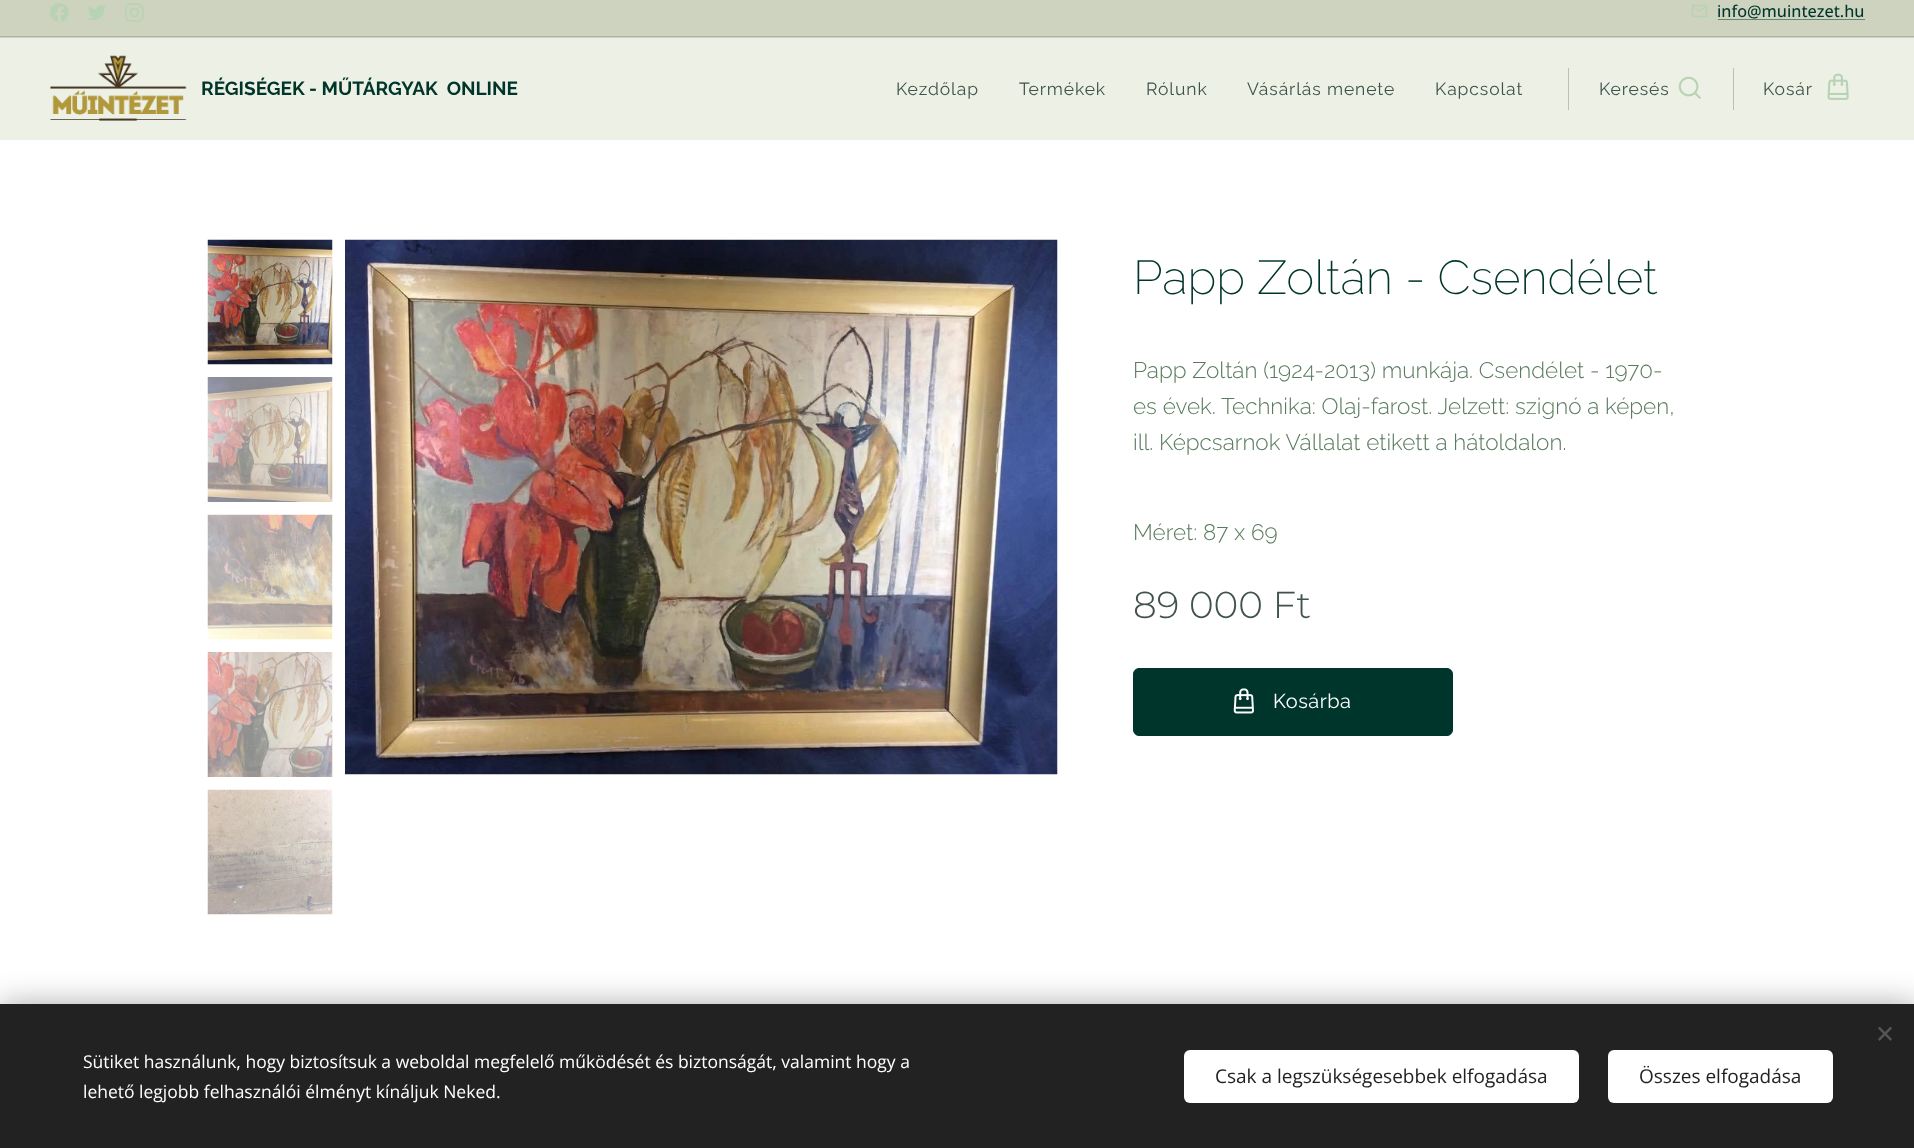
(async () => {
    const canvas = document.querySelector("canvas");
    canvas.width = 1914;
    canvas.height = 1148;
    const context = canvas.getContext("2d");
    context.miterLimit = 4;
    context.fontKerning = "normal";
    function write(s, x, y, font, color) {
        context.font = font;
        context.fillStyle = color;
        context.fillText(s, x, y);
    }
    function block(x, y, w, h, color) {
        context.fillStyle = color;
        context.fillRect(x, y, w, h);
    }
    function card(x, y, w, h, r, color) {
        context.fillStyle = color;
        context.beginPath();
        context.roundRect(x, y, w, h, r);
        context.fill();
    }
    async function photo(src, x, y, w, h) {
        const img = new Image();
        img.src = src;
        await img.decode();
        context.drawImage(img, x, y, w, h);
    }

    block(0, 0, 1914, 1148, "rgb(255, 255, 255)");
    block(0, 0, 1914, 38, "rgb(206, 211, 191)");
    await photo("media/1.png", 50, 3, 19, 19);
    await photo("media/2.png", 88, 5, 18, 15);
    await photo("media/3.png", 125, 3, 19, 19);
    await photo("media/4.png", 1691, 4, 17, 14);
    write("info@muintezet.hu", 1717, 17, "500 16.25px Open Sans", "rgb(0, 53, 43)");
    block(1718, 19, 147, 1, "rgb(103, 132, 117)");
    block(0, 36, 1914, 1, "rgb(175, 179, 162)");
    block(0, 38, 1914, 102, "rgb(236, 240, 229)");
    await photo("media/5.png", 50, 55, 137, 66);
    write("RÉGISÉGEK - MŰTÁRGYAK  ONLINE", 201, 95, "bold 19px Raleway", "rgb(0, 53, 43)");
    context.letterSpacing = "0.9px";
    write("Kezdőlap", 896, 95, "17.5px Raleway", "rgb(63, 82, 76)");
    write("Termékek", 1019, 95, "17.5px Raleway", "rgb(63, 82, 76)");
    write("Rólunk", 1146, 95, "17.5px Raleway", "rgb(63, 82, 76)");
    write("Vásárlás menete", 1247, 95, "17.5px Raleway", "rgb(63, 82, 76)");
    write("Kapcsolat", 1435, 95, "17.5px Raleway", "rgb(63, 82, 76)");
    block(1568, 68, 1, 42, "rgb(189, 192, 183)");
    write("Keresés", 1599, 95, "17.5px Raleway", "rgb(63, 82, 76)");
    await photo("media/6.png", 1678, 76, 23, 23);
    block(1733, 68, 1, 42, "rgb(189, 192, 183)");
    write("Kosár", 1763, 95, "17.5px Raleway", "rgb(63, 82, 76)");
    await photo("media/7.png", 1827, 73, 22, 27);
    await photo("media/8.png", 207, 239, 126, 126);
    await photo("media/9.png", 207, 377, 126, 125);
    await photo("media/10.png", 207, 514, 126, 126);
    await photo("media/11.png", 207, 652, 126, 125);
    await photo("media/12.png", 207, 789, 126, 126);
    await photo("media/13.png", 345, 239, 713, 536);
    context.letterSpacing = "0px";
    write("Papp Zoltán - Csendélet", 1133, 294, "200 47.5px Raleway", "rgb(0, 53, 43)");
    write("Papp Zoltán (1924-2013) munkája. Csendélet - 1970-", 1133, 378, "300 22.5px Raleway", "rgb(90, 123, 94)");
    write("es évek. Technika: Olaj-farost. Jelzett: szignó a képen,", 1133, 414, "300 22.5px Raleway", "rgb(90, 123, 94)");
    write("ill. Képcsarnok Vállalat etikett a hátoldalon.", 1133, 450, "300 22.5px Raleway", "rgb(90, 123, 94)");
    write("Méret: 87 x 69", 1133, 540, "300 22.5px Raleway", "rgb(90, 123, 94)");
    write("89 000 Ft", 1133, 618, "300 37.5px Montserrat", "rgb(63, 82, 76)");
    context.fillStyle = "rgb(0, 53, 43)";
    context.beginPath();
    context.roundRect(1133.5, 668.5, 319, 67, 5.5);
    context.fill();
    context.strokeStyle = "rgb(0, 53, 43)";
    context.stroke();
    await photo("media/14.png", 1233, 688, 21, 26);
    context.letterSpacing = "0.5px";
    write("Kosárba", 1273, 708, "20px Raleway", "rgb(255, 255, 255)");
    context.fillStyle = "rgba(0, 0, 0, 0.33)";
    context.filter = "blur(15.5px)";
    context.beginPath();
    context.rect(0, 1004, 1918, 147);
    context.fill();
    context.filter = "none";
    block(0, 1004, 1914, 144, "rgb(34, 34, 34)");
    context.fillStyle = "rgb(85, 85, 85)";
    context.beginPath();
    context.moveTo(1878, 1039);
    context.lineTo(1890.5, 1026.5);
    context.lineTo(1892, 1028.5);
    context.lineTo(1879.5, 1041);
    context.closePath();
    context.fill();
    context.beginPath();
    context.moveTo(1879.5, 1026.5);
    context.lineTo(1892, 1039);
    context.lineTo(1890.5, 1041);
    context.lineTo(1878, 1028.5);
    context.closePath();
    context.fill();
    context.letterSpacing = "0px";
    write("Sütiket használunk, hogy biztosítsuk a weboldal megfelelő működését és biztonságát, valamint hogy a", 83, 1068, "17.5px Open Sans", "rgb(255, 255, 255)");
    write("lehető legjobb felhasználói élményt kínáljuk Neked.", 83, 1098, "17.5px Open Sans", "rgb(255, 255, 255)");
    card(1184, 1050, 395, 53, 6, "rgb(255, 255, 255)");
    write("Csak a legszükségesebbek elfogadása", 1215, 1083, "19px Open Sans", "rgb(34, 34, 34)");
    card(1608, 1050, 225, 53, 6, "rgb(255, 255, 255)");
    write("Összes elfogadása", 1639, 1083, "19px Open Sans", "rgb(34, 34, 34)");
})();
